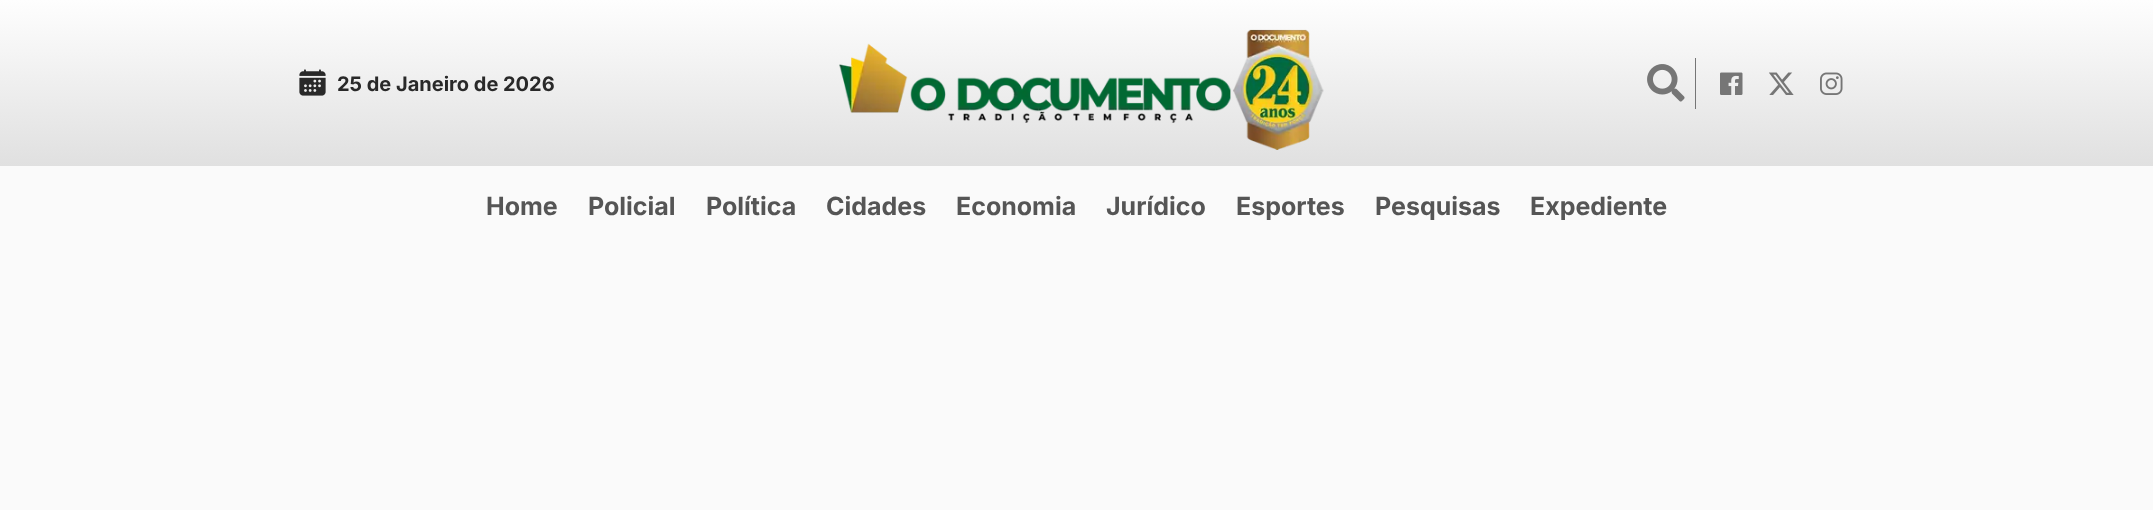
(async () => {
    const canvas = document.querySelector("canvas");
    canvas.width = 2153;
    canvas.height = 510;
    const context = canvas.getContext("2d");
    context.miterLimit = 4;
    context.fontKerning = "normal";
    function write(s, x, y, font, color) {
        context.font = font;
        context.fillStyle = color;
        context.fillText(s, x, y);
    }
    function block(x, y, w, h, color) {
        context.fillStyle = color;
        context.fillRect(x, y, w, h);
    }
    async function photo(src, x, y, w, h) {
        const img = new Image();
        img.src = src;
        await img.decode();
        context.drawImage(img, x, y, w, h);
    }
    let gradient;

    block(0, 0, 2153, 510, "rgb(250, 250, 250)");
    gradient = context.createLinearGradient(1077, 0, 1077, 166);
    gradient.addColorStop(0, "rgb(254, 254, 254)");
    gradient.addColorStop(1, "rgb(224, 224, 224)");
    context.fillStyle = gradient;
    context.fillRect(0, 0, 2153, 166);
    await photo("media/1.png", 299, 69, 27, 27);
    write("25 de Janeiro de 2026", 337, 91, "bold 20px Inter", "rgb(41, 41, 41)");
    await photo("media/2.png", 839, 29, 485, 121);
    block(1695, 58, 1, 51, "rgb(118, 118, 118)");
    await photo("media/3.png", 1647, 64, 38, 38);
    await photo("media/4.png", 1720, 72, 23, 23);
    await photo("media/5.png", 1769, 72, 25, 23);
    await photo("media/6.png", 1820, 72, 23, 23);
    write("Home", 486, 215, "bold 25px Inter", "rgb(85, 85, 85)");
    write("Policial", 588, 215, "bold 25px Inter", "rgb(85, 85, 85)");
    write("Política", 706, 215, "bold 25px Inter", "rgb(85, 85, 85)");
    write("Cidades", 826, 215, "bold 25px Inter", "rgb(85, 85, 85)");
    write("Economia", 956, 215, "bold 25px Inter", "rgb(85, 85, 85)");
    write("Jurídico", 1106, 215, "bold 25px Inter", "rgb(85, 85, 85)");
    write("Esportes", 1236, 215, "bold 25px Inter", "rgb(85, 85, 85)");
    write("Pesquisas", 1375, 215, "bold 25px Inter", "rgb(85, 85, 85)");
    write("Expediente", 1530, 215, "bold 25px Inter", "rgb(85, 85, 85)");
})();
